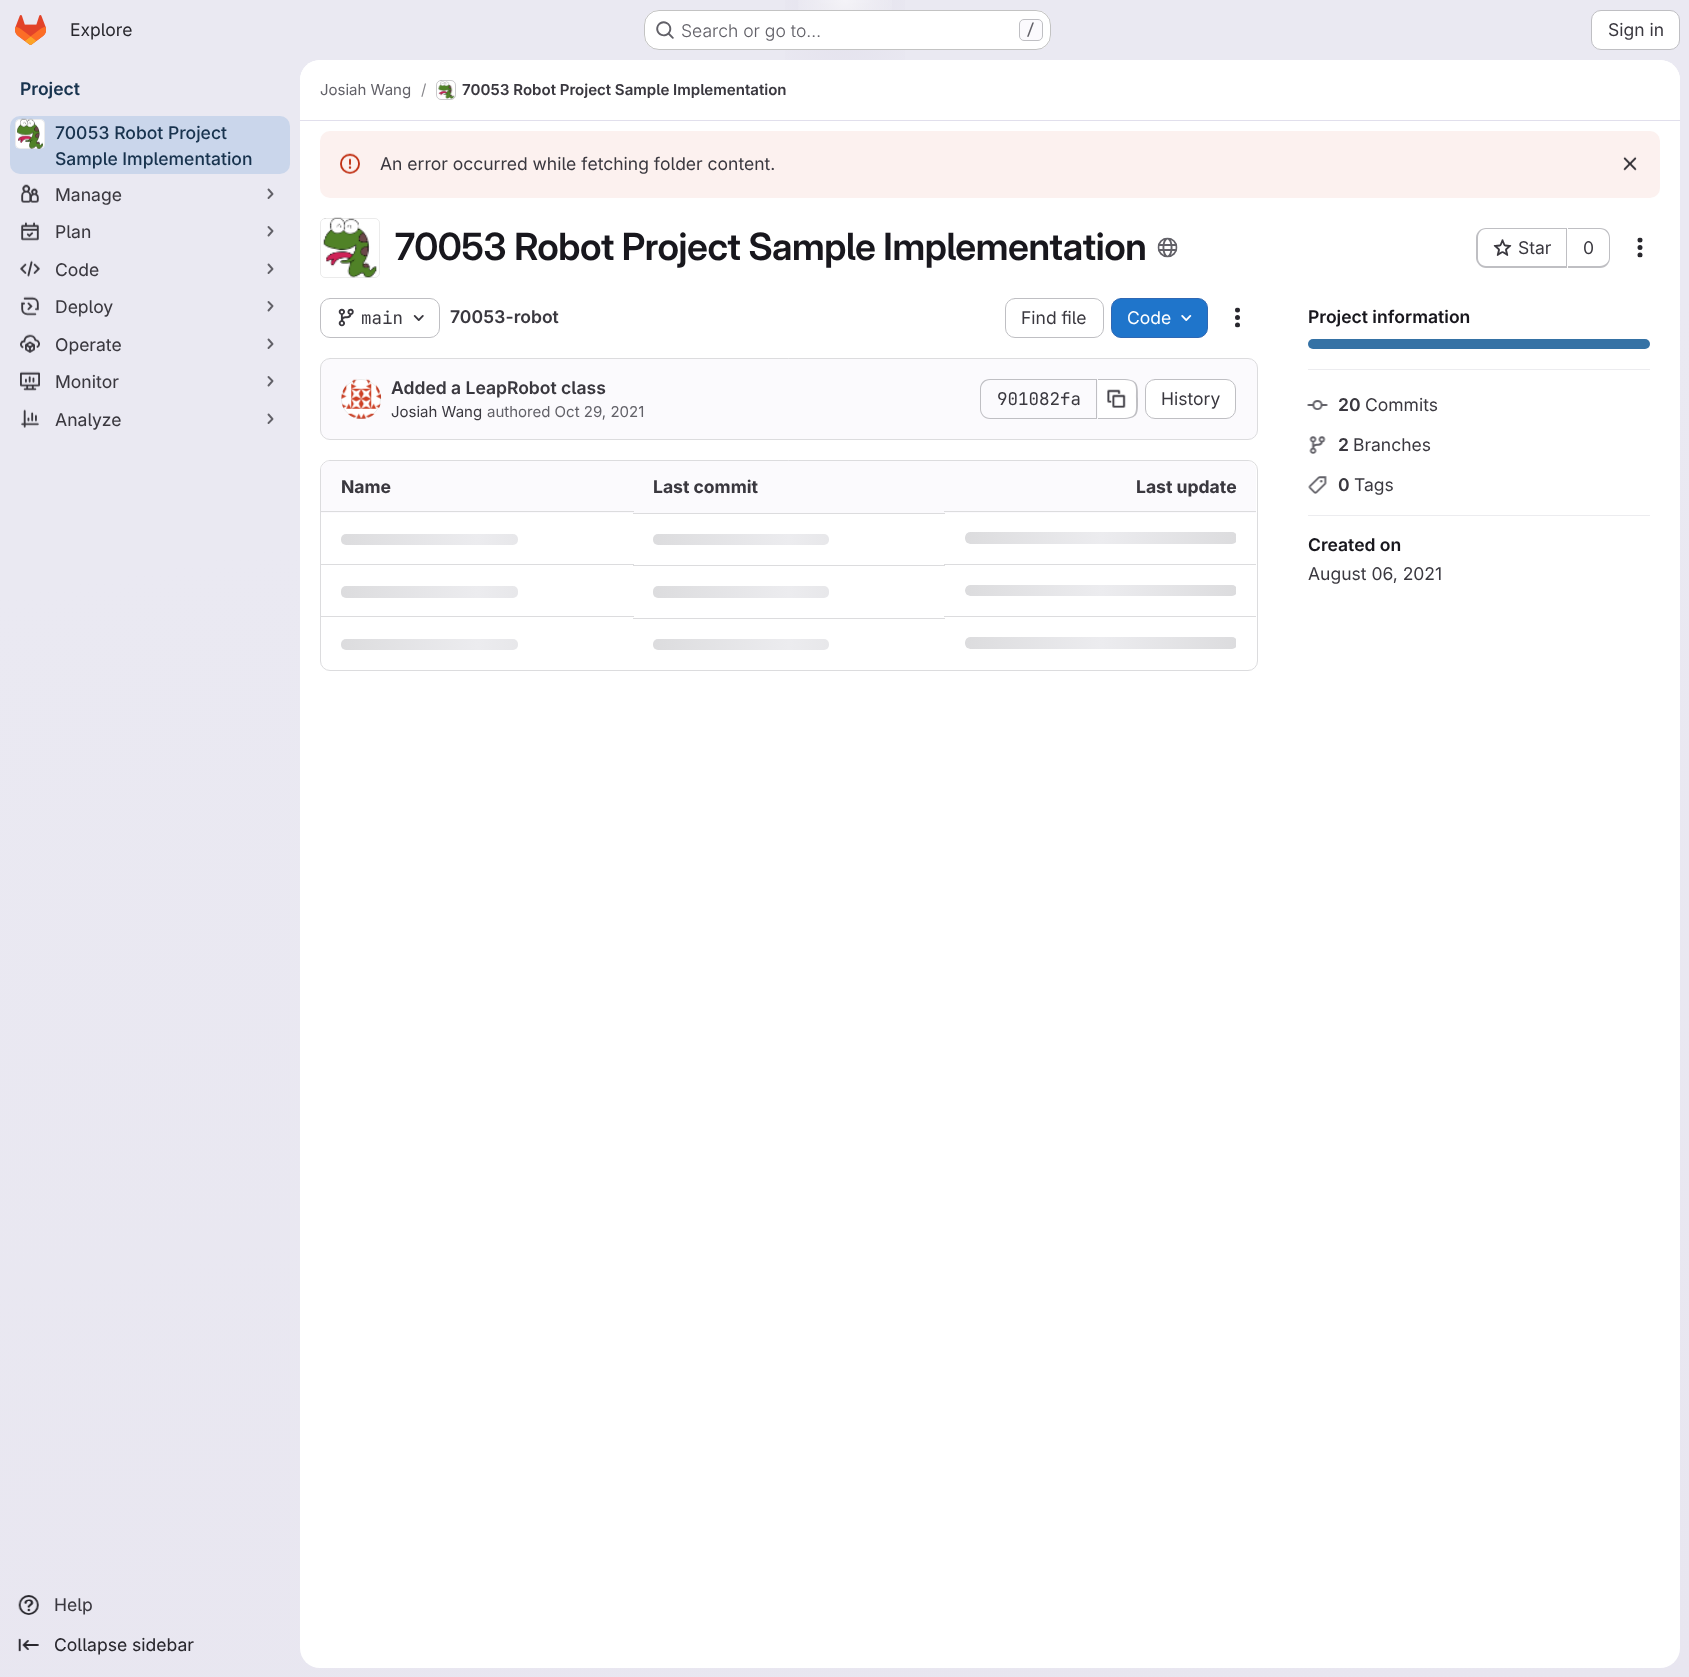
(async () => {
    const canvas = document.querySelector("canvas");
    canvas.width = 1689;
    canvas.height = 1677;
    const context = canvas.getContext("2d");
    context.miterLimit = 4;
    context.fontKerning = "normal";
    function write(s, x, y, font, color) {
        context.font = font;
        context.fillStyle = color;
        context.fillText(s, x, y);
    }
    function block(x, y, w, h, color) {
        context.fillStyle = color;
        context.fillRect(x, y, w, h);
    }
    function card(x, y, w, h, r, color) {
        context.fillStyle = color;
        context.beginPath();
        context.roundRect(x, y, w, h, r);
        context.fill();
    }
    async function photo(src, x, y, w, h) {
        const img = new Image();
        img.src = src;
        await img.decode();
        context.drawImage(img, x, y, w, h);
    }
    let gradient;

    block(0, 0, 1689, 1677, "rgb(255, 255, 255)");
    gradient = context.createLinearGradient(1014, 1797, 676, -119);
    gradient.addColorStop(0, "rgb(232, 230, 240)");
    gradient.addColorStop(0.7, "rgb(234, 233, 242)");
    context.fillStyle = gradient;
    context.fillRect(0, 0, 1689, 1677);
    gradient = context.createRadialGradient(845, 0, 0, 845, 0, 845);
    gradient.addColorStop(0, "rgb(228, 226, 237)");
    gradient.addColorStop(0.1, "rgba(228, 226, 237, 0)");
    context.fillStyle = gradient;
    context.beginPath();
    context.rect(785, 0, 120, 60);
    context.save();
    context.clip();
    context.scale(1, 1678 / 845);
    context.fillRect(0, 0, 1689, 845);
    context.restore();
    gradient = context.createRadialGradient(845, 0, 0, 845, 0, 845);
    gradient.addColorStop(0, "rgb(228, 226, 236)");
    gradient.addColorStop(0.07, "rgba(228, 226, 236, 0)");
    context.fillStyle = gradient;
    context.beginPath();
    context.rect(820, 3, 50, 17);
    context.save();
    context.clip();
    context.scale(1, 1678 / 845);
    context.fillRect(0, 0, 1689, 845);
    context.restore();
    gradient = context.createRadialGradient(845, 0, 0, 845, 0, 1878);
    gradient.addColorStop(0, "rgba(255, 255, 255, 0.6)");
    gradient.addColorStop(0.03, "rgba(255, 255, 255, 0)");
    context.fillStyle = gradient;
    context.fillRect(798, 0, 94, 48);
    await photo("media/1.png", 15, 15, 31, 30);
    write("Explore", 70, 36, "17.5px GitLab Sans", "rgb(40, 39, 45)");
    card(644, 10, 407, 40, 15, "rgb(255, 255, 255)");
    context.beginPath();
    context.roundRect(644.5, 10.5, 406, 39, 14.5);
    context.strokeStyle = "rgba(5, 5, 6, 0.24)";
    context.stroke();
    await photo("media/2.png", 656, 21, 18, 18);
    write("Search or go to…", 681, 37, "300 17.5px GitLab Sans", "rgb(98, 97, 104)");
    context.fillStyle = "rgb(251, 250, 253)";
    context.beginPath();
    context.roundRect(1019.5, 19.5, 23, 21, 4.5);
    context.fill();
    context.strokeStyle = "rgb(191, 191, 195)";
    context.stroke();
    write("/", 1026, 35, "500 15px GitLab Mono", "rgb(98, 97, 104)");
    context.fillStyle = "rgb(255, 255, 255)";
    context.beginPath();
    context.roundRect(1591.5, 10.5, 88, 39, 9.5);
    context.fill();
    context.stroke();
    write("Sign in", 1608, 36, "17.5px GitLab Sans", "rgb(58, 56, 63)");
    write("Project", 20, 95, "600 17.5px 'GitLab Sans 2'", "rgb(24, 51, 78)");
    card(10, 116, 280, 58, 10, "rgb(202, 214, 235)");
    card(15, 119, 30, 30, 5, "rgb(255, 255, 255)");
    await photo("media/3.png", 17, 118, 26, 31);
    context.beginPath();
    context.roundRect(15.5, 119.5, 29, 29, 4.5);
    context.strokeStyle = "rgba(5, 5, 6, 0.08)";
    context.stroke();
    write("70053 Robot Project", 55, 139, "500 17.5px GitLab Sans", "rgb(24, 51, 78)");
    write("Sample Implementation", 55, 165, "500 17.5px GitLab Sans", "rgb(24, 51, 78)");
    await photo("media/4.png", 21, 184, 18, 19);
    write("Manage", 55, 201, "17.5px 'GitLab Sans 2'", "rgb(58, 56, 63)");
    context.beginPath();
    context.moveTo(268.5, 189.5);
    context.lineTo(272.5, 194);
    context.lineTo(268.5, 198);
    context.strokeStyle = "rgb(98, 97, 104)";
    context.lineWidth = 1.9;
    context.lineCap = "round";
    context.lineJoin = "round";
    context.stroke();
    await photo("media/5.png", 21, 221, 18, 20);
    write("Plan", 55, 238, "17.5px 'GitLab Sans 2'", "rgb(58, 56, 63)");
    context.beginPath();
    context.moveTo(268.5, 227);
    context.lineTo(272.5, 231);
    context.lineTo(268.5, 235.5);
    context.stroke();
    await photo("media/6.png", 20, 260, 20, 17);
    write("Code", 55, 276, "17.5px 'GitLab Sans 2'", "rgb(58, 56, 63)");
    context.beginPath();
    context.moveTo(268.5, 264.5);
    context.lineTo(272.5, 269);
    context.lineTo(268.5, 273);
    context.stroke();
    await photo("media/7.png", 21, 296, 18, 20);
    write("Deploy", 55, 313, "17.5px 'GitLab Sans 2'", "rgb(58, 56, 63)");
    context.beginPath();
    context.moveTo(268.5, 302);
    context.lineTo(272.5, 306);
    context.lineTo(268.5, 310.5);
    context.stroke();
    await photo("media/8.png", 20, 334, 20, 19);
    write("Operate", 55, 351, "17.5px 'GitLab Sans 2'", "rgb(58, 56, 63)");
    context.beginPath();
    context.moveTo(268.5, 339.5);
    context.lineTo(272.5, 344);
    context.lineTo(268.5, 348);
    context.stroke();
    await photo("media/9.png", 20, 371, 20, 20);
    write("Monitor", 55, 388, "17.5px 'GitLab Sans 2'", "rgb(58, 56, 63)");
    context.beginPath();
    context.moveTo(268.5, 377);
    context.lineTo(272.5, 381);
    context.lineTo(268.5, 385.5);
    context.stroke();
    await photo("media/10.png", 21, 409, 18, 19);
    write("Analyze", 55, 426, "17.5px 'GitLab Sans 2'", "rgb(58, 56, 63)");
    context.beginPath();
    context.moveTo(268.5, 414.5);
    context.lineTo(272.5, 419);
    context.lineTo(268.5, 423);
    context.stroke();
    await photo("media/11.png", 18, 1595, 21, 20);
    write("Help", 54, 1611, "17.5px 'GitLab Sans 2'", "rgb(58, 56, 63)");
    await photo("media/12.png", 18, 1638, 21, 14);
    write("Collapse sidebar", 54, 1651, "17.5px 'GitLab Sans 2'", "rgb(40, 39, 45)");
    card(300, 60, 1380, 1608, 20, "rgb(255, 255, 255)");
    context.beginPath();
    context.roundRect(300, 60, 1380, 61, [20, 20, 0, 0]);
    context.fill();
    block(300, 120, 1380, 1, "rgb(225, 223, 236)");
    write("Josiah Wang", 320, 95, "15px GitLab Sans", "rgb(98, 97, 104)");
    write("/", 421, 95, "15px GitLab Sans", "rgb(137, 136, 141)");
    context.beginPath();
    context.roundRect(436.5, 80.5, 19, 19, 4.5);
    context.strokeStyle = "rgb(220, 220, 222)";
    context.lineWidth = 1;
    context.lineJoin = "miter";
    context.stroke();
    await photo("media/13.png", 438, 81, 17, 18);
    context.beginPath();
    context.roundRect(436.5, 80.5, 19, 19, 4.5);
    context.strokeStyle = "rgba(5, 5, 6, 0.08)";
    context.stroke();
    write("70053 Robot Project Sample Implementation", 462, 95, "600 15px 'GitLab Sans 2'", "rgb(58, 56, 63)");
    card(320, 131, 1340, 67, 10, "rgb(252, 241, 239)");
    await photo("media/14.png", 340, 153, 20, 21);
    write("An error occurred while fetching folder content.", 380, 170, "17.5px GitLab Sans", "rgb(58, 56, 63)");
    await photo("media/15.png", 1623, 156, 14, 15);
    await photo("media/16.png", 323, 217, 54, 61);
    context.beginPath();
    context.roundRect(320.5, 218.5, 59, 59, 4.5);
    context.stroke();
    context.letterSpacing = "-0.4px";
    write("70053 Robot Project Sample Implementation", 395, 260, "600 37.5px GitLab Sans", "rgb(24, 23, 29)");
    await photo("media/17.png", 1157, 237, 21, 21);
    context.fillStyle = "rgb(191, 191, 195)";
    context.beginPath();
    context.moveTo(1486, 228);
    context.lineTo(1566, 228);
    context.lineTo(1566, 268);
    context.lineTo(1486, 268);
    context.bezierCurveTo(1481, 268, 1476, 263, 1476, 258);
    context.lineTo(1476, 238);
    context.bezierCurveTo(1476, 232, 1481, 228, 1486, 228);
    context.closePath();
    context.moveTo(1486, 229);
    context.lineTo(1566, 229);
    context.lineTo(1566, 266);
    context.lineTo(1486, 266);
    context.bezierCurveTo(1481, 266, 1478, 262, 1478, 258);
    context.lineTo(1478, 238);
    context.bezierCurveTo(1478, 233, 1481, 229, 1486, 229);
    context.closePath();
    context.fill("evenodd");
    await photo("media/18.png", 1493, 239, 19, 17);
    context.letterSpacing = "0px";
    write("Star", 1518, 254, "17.5px GitLab Sans", "rgb(58, 56, 63)");
    context.fillStyle = "rgb(191, 191, 195)";
    context.beginPath();
    context.moveTo(1568, 228);
    context.lineTo(1600, 228);
    context.bezierCurveTo(1606, 228, 1610, 232, 1610, 238);
    context.lineTo(1610, 258);
    context.bezierCurveTo(1610, 263, 1606, 268, 1600, 268);
    context.lineTo(1568, 268);
    context.closePath();
    context.moveTo(1568, 229);
    context.lineTo(1600, 229);
    context.bezierCurveTo(1605, 229, 1609, 233, 1609, 238);
    context.lineTo(1609, 258);
    context.bezierCurveTo(1609, 262, 1605, 266, 1600, 266);
    context.lineTo(1568, 266);
    context.closePath();
    context.fill("evenodd");
    block(1566, 228, 1, 40, "rgb(191, 191, 195)");
    write("0", 1583, 254, "17.5px GitLab Sans", "rgb(58, 56, 63)");
    await photo("media/19.png", 1637, 237, 6, 21);
    context.beginPath();
    context.roundRect(320.5, 298.5, 119, 39, 9.5);
    context.strokeStyle = "rgb(191, 191, 195)";
    context.stroke();
    await photo("media/20.png", 338, 308, 16, 19);
    write("main", 361, 324, "17.5px GitLab Mono", "rgb(58, 56, 63)");
    await photo("media/21.png", 413, 315, 11, 6);
    write("70053-robot", 450, 323, "600 17.5px 'GitLab Sans 2'", "rgb(58, 56, 63)");
    context.beginPath();
    context.roundRect(1005.5, 298.5, 98, 39, 9.5);
    context.stroke();
    write("Find file", 1021, 324, "17.5px GitLab Sans", "rgb(58, 56, 63)");
    context.fillStyle = "rgb(31, 117, 203)";
    context.beginPath();
    context.roundRect(1111.5, 298.5, 96, 39, 9.5);
    context.fill();
    context.strokeStyle = "rgb(47, 104, 180)";
    context.stroke();
    write("Code", 1127, 324, "17.5px GitLab Sans", "rgb(255, 255, 255)");
    await photo("media/22.png", 1181, 315, 11, 6);
    await photo("media/23.png", 1235, 307, 5, 21);
    context.fillStyle = "rgb(251, 250, 253)";
    context.beginPath();
    context.roundRect(320.5, 358.5, 937, 81, 9.5);
    context.fill();
    context.strokeStyle = "rgb(220, 220, 222)";
    context.stroke();
    await photo("media/24.png", 341, 378, 41, 41);
    context.beginPath();
    context.arc(361, 399, 19.5, 0, Math.PI * 2);
    context.strokeStyle = "rgba(5, 5, 6, 0.08)";
    context.stroke();
    write("Added a LeapRobot class", 391, 394, "600 17.5px 'GitLab Sans 2'", "rgb(58, 56, 63)");
    write("Josiah Wang", 391, 417, "15px GitLab Sans", "rgb(58, 56, 63)");
    write("authored Oct 29, 2021", 487, 417, "15px GitLab Sans", "rgb(98, 97, 104)");
    context.fillStyle = "rgb(191, 191, 195)";
    context.beginPath();
    context.moveTo(990, 379);
    context.lineTo(1096, 379);
    context.lineTo(1096, 419);
    context.lineTo(990, 419);
    context.bezierCurveTo(984, 419, 980, 414, 980, 409);
    context.lineTo(980, 389);
    context.bezierCurveTo(980, 383, 984, 379, 990, 379);
    context.closePath();
    context.moveTo(990, 380);
    context.lineTo(1096, 380);
    context.lineTo(1096, 418);
    context.lineTo(990, 418);
    context.bezierCurveTo(985, 418, 981, 414, 981, 409);
    context.lineTo(981, 389);
    context.bezierCurveTo(981, 384, 985, 380, 990, 380);
    context.closePath();
    context.fill("evenodd");
    write("901082fa", 997, 405, "17.5px GitLab Mono", "rgb(58, 56, 63)");
    context.fillStyle = "rgb(255, 255, 255)";
    context.beginPath();
    context.roundRect(1098, 380, 38, 38, [0, 9, 9, 0]);
    context.fill();
    context.fillStyle = "rgb(191, 191, 195)";
    context.beginPath();
    context.moveTo(1098, 379);
    context.lineTo(1122, 379);
    context.bezierCurveTo(1139, 379, 1138, 385, 1138, 399);
    context.bezierCurveTo(1138, 413, 1139, 419, 1122, 419);
    context.lineTo(1098, 419);
    context.closePath();
    context.moveTo(1098, 380);
    context.lineTo(1122, 380);
    context.bezierCurveTo(1138, 380, 1136, 385, 1136, 399);
    context.bezierCurveTo(1136, 412, 1138, 418, 1122, 418);
    context.lineTo(1098, 418);
    context.closePath();
    context.fill("evenodd");
    block(1096, 379, 1, 40, "rgb(191, 191, 195)");
    await photo("media/25.png", 1107, 389, 19, 19);
    context.fillStyle = "rgb(255, 255, 255)";
    context.beginPath();
    context.roundRect(1145.5, 379.5, 90, 39, 9.5);
    context.fill();
    context.strokeStyle = "rgb(191, 191, 195)";
    context.stroke();
    write("History", 1161, 405, "17.5px GitLab Sans", "rgb(58, 56, 63)");
    context.beginPath();
    context.roundRect(320.5, 460.5, 937, 210, 9.5);
    context.strokeStyle = "rgb(220, 220, 222)";
    context.stroke();
    context.fillStyle = "rgb(251, 250, 253)";
    context.beginPath();
    context.roundRect(321, 461, 312, 52, [9, 0, 0, 0]);
    context.fill();
    write("Name", 341, 493, "bold 17.5px GitLab Sans", "rgb(58, 56, 63)");
    block(633, 461, 312, 52, "rgb(251, 250, 253)");
    write("Last commit", 653, 493, "bold 17.5px GitLab Sans", "rgb(58, 56, 63)");
    context.fillStyle = "rgb(251, 250, 253)";
    context.beginPath();
    context.roundRect(945, 461, 311, 52, [0, 9, 0, 0]);
    context.fill();
    write("Last update", 1136, 493, "bold 17.5px GitLab Sans", "rgb(58, 56, 63)");
    block(321, 511, 313, 1, "rgb(220, 220, 222)");
    gradient = context.createLinearGradient(341, 534, 613, 534);
    gradient.addColorStop(0, "rgb(220, 220, 222)");
    gradient.addColorStop(0.5, "rgb(236, 236, 239)");
    gradient.addColorStop(1, "rgb(220, 220, 222)");
    context.fillStyle = gradient;
    context.beginPath();
    context.roundRect(341, 534, 177, 11, 5);
    context.fill();
    block(633, 513, 312, 1, "rgb(220, 220, 222)");
    gradient = context.createLinearGradient(653, 534, 924, 534);
    gradient.addColorStop(0, "rgb(220, 220, 222)");
    gradient.addColorStop(0.5, "rgb(236, 236, 239)");
    gradient.addColorStop(1, "rgb(220, 220, 222)");
    context.fillStyle = gradient;
    context.beginPath();
    context.roundRect(653, 534, 176, 11, 5);
    context.fill();
    block(944, 511, 312, 1, "rgb(220, 220, 222)");
    context.save();
    context.beginPath();
    context.roundRect(965, 532, 272, 12, 5);
    context.clip();
    gradient = context.createLinearGradient(965, 532, 1237, 532);
    gradient.addColorStop(0, "rgb(220, 220, 222)");
    gradient.addColorStop(0.5, "rgb(236, 236, 239)");
    gradient.addColorStop(1, "rgb(220, 220, 222)");
    context.fillStyle = gradient;
    context.beginPath();
    context.roundRect(965, 532, 271, 12, [5, 0, 0, 5]);
    context.fill();
    context.restore();
    block(321, 564, 313, 1, "rgb(220, 220, 222)");
    gradient = context.createLinearGradient(341, 586, 613, 586);
    gradient.addColorStop(0, "rgb(220, 220, 222)");
    gradient.addColorStop(0.5, "rgb(236, 236, 239)");
    gradient.addColorStop(1, "rgb(220, 220, 222)");
    context.fillStyle = gradient;
    context.beginPath();
    context.roundRect(341, 586, 177, 12, 5);
    context.fill();
    block(633, 565, 312, 1, "rgb(220, 220, 222)");
    gradient = context.createLinearGradient(653, 586, 924, 586);
    gradient.addColorStop(0, "rgb(220, 220, 222)");
    gradient.addColorStop(0.5, "rgb(236, 236, 239)");
    gradient.addColorStop(1, "rgb(220, 220, 222)");
    context.fillStyle = gradient;
    context.beginPath();
    context.roundRect(653, 586, 176, 12, 5);
    context.fill();
    block(944, 564, 312, 1, "rgb(220, 220, 222)");
    context.save();
    context.beginPath();
    context.roundRect(965, 585, 272, 11, 5);
    context.clip();
    gradient = context.createLinearGradient(965, 585, 1237, 585);
    gradient.addColorStop(0, "rgb(220, 220, 222)");
    gradient.addColorStop(0.5, "rgb(236, 236, 239)");
    gradient.addColorStop(1, "rgb(220, 220, 222)");
    context.fillStyle = gradient;
    context.beginPath();
    context.roundRect(965, 585, 271, 11, [5, 0, 0, 5]);
    context.fill();
    context.restore();
    block(321, 616, 313, 1, "rgb(220, 220, 222)");
    gradient = context.createLinearGradient(341, 639, 613, 639);
    gradient.addColorStop(0, "rgb(220, 220, 222)");
    gradient.addColorStop(0.5, "rgb(236, 236, 239)");
    gradient.addColorStop(1, "rgb(220, 220, 222)");
    context.fillStyle = gradient;
    context.beginPath();
    context.roundRect(341, 639, 177, 11, 5);
    context.fill();
    block(633, 618, 312, 1, "rgb(220, 220, 222)");
    gradient = context.createLinearGradient(653, 639, 924, 639);
    gradient.addColorStop(0, "rgb(220, 220, 222)");
    gradient.addColorStop(0.5, "rgb(236, 236, 239)");
    gradient.addColorStop(1, "rgb(220, 220, 222)");
    context.fillStyle = gradient;
    context.beginPath();
    context.roundRect(653, 639, 176, 11, 5);
    context.fill();
    block(944, 616, 312, 1, "rgb(220, 220, 222)");
    context.save();
    context.beginPath();
    context.roundRect(965, 637, 272, 12, 5);
    context.clip();
    gradient = context.createLinearGradient(965, 637, 1237, 637);
    gradient.addColorStop(0, "rgb(220, 220, 222)");
    gradient.addColorStop(0.5, "rgb(236, 236, 239)");
    gradient.addColorStop(1, "rgb(220, 220, 222)");
    context.fillStyle = gradient;
    context.beginPath();
    context.roundRect(965, 637, 271, 12, [5, 0, 0, 5]);
    context.fill();
    context.restore();
    block(1308, 369, 342, 1, "rgb(236, 236, 239)");
    write("Project information", 1308, 323, "600 17.5px 'GitLab Sans 2'", "rgb(24, 23, 29)");
    card(1308, 339, 342, 10, 5, "rgb(53, 114, 165)");
    block(1308, 515, 342, 1, "rgb(236, 236, 239)");
    await photo("media/26.png", 1307, 400, 21, 10);
    write("20", 1338, 411, "600 17.5px 'GitLab Sans 2'", "rgb(58, 56, 63)");
    write("Commits", 1365, 411, "17.5px GitLab Sans", "rgb(58, 56, 63)");
    await photo("media/27.png", 1309, 436, 17, 18);
    write("2", 1338, 451, "600 17.5px 'GitLab Sans 2'", "rgb(58, 56, 63)");
    write("Branches", 1353, 451, "17.5px GitLab Sans", "rgb(58, 56, 63)");
    await photo("media/28.png", 1308, 476, 19, 18);
    write("0", 1338, 491, "600 17.5px 'GitLab Sans 2'", "rgb(58, 56, 63)");
    write("Tags", 1354, 491, "17.5px GitLab Sans", "rgb(58, 56, 63)");
    write("Created on", 1308, 551, "600 17.5px 'GitLab Sans 2'", "rgb(24, 23, 29)");
    write("August 06, 2021", 1308, 580, "17.5px GitLab Sans", "rgb(58, 56, 63)");
})();
